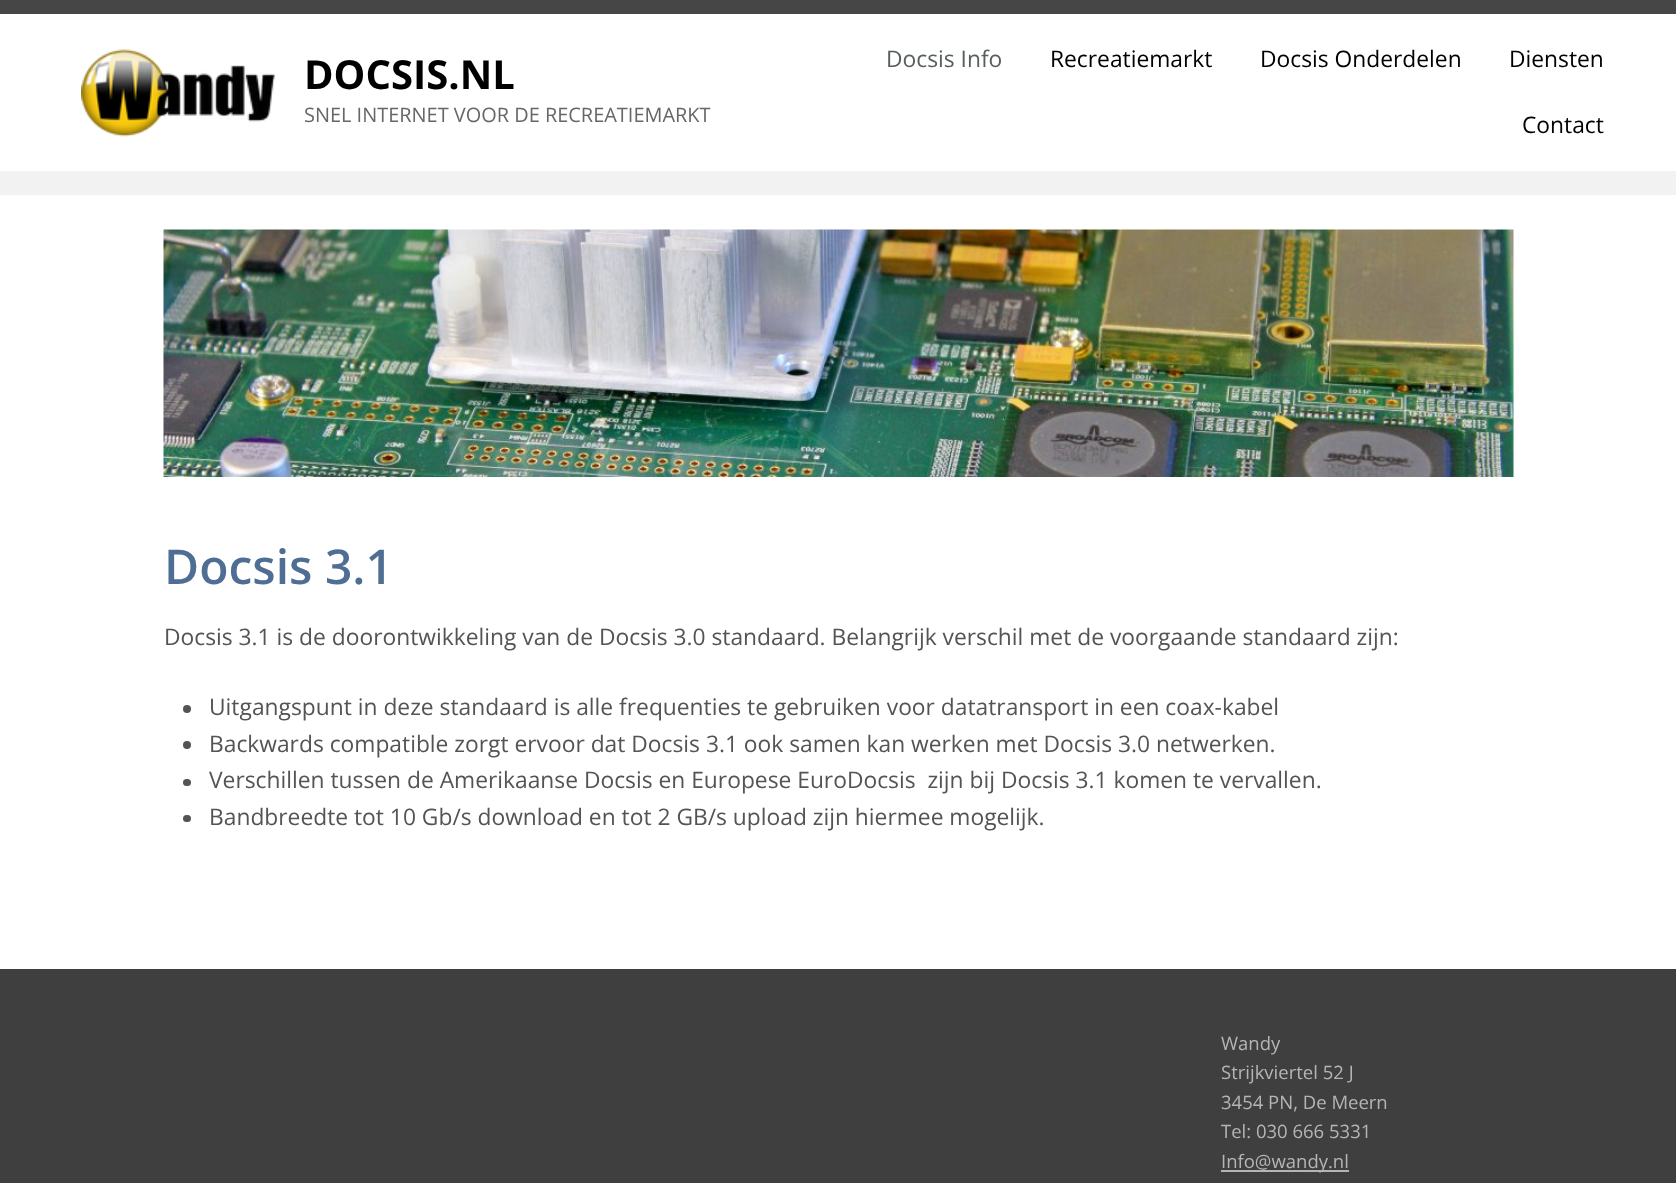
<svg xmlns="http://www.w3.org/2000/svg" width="1676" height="1183">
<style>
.a{font:bold 40px Open Sans;fill:#000}
.b{font:19.95px Open Sans;fill:#676767}
.c{font:22.8px Open Sans;fill:#575e5e}
.d{font:22.8px Open Sans;fill:#000}
.e{font:600 48px Open Sans;fill:#4f6e94}
.f{font:22.8px Open Sans;fill:#535455}
.g{font:18.5px Open Sans;fill:#b5b5b5}
</style>
<rect width="100%" height="100%" fill="#464646"/>
<path fill="#fff" d="M0 14h1676v157H0z"/>
<image href="1.png" x="81" y="49" width="194" height="88"/>
<path fill="#f2f2f2" d="M0 171h1676v24H0z"/>
<path fill="#fff" d="M0 195h1676v774H0z"/>
<image href="2.png" x="163" y="229" width="1351" height="248"/>
<circle fill="#535455" cx="187" cy="709" r="4"/>
<circle fill="#535455" cx="187" cy="745" r="4"/>
<rect fill="#535455" x="183" y="779" width="8" height="7" rx="3.5"/>
<rect fill="#535455" x="183" y="815" width="8" height="7" rx="3.5"/>
<path fill="#403f3f" d="M0 969h1676v214H0z"/>
<path fill="#b5b5b5" d="M1221 1170h128v2H1221z"/>
<text class="a" x="304" y="89">DOCSIS.NL</text>
<text class="b" x="304" y="122">SNEL INTERNET VOOR DE RECREATIEMARKT</text>
<text class="c" x="886" y="67">Docsis Info</text>
<text class="d" x="1050" y="67">Recreatiemarkt</text>
<text class="d" x="1260" y="67">Docsis Onderdelen</text>
<text class="d" x="1509" y="67">Diensten</text>
<text class="d" x="1522" y="133">Contact</text>
<text class="e" x="164" y="584">Docsis 3.1</text>
<text class="f" x="164" y="645">Docsis 3.1 is de doorontwikkeling van de Docsis 3.0 standaard. Belangrijk verschil met de voorgaande standaard zijn:</text>
<text class="f" x="209" y="715">Uitgangspunt in deze standaard is alle frequenties te gebruiken voor datatransport in een coax-kabel</text>
<text class="f" x="209" y="752">Backwards compatible zorgt ervoor dat Docsis 3.1 ook samen kan werken met Docsis 3.0 netwerken.</text>
<text class="f" xml:space="preserve" x="209" y="788">Verschillen tussen de Amerikaanse Docsis en Europese EuroDocsis  zijn bij Docsis 3.1 komen te vervallen.</text>
<text class="f" x="209" y="825">Bandbreedte tot 10 Gb/s download en tot 2 GB/s upload zijn hiermee mogelijk.</text>
<text class="g" x="1221" y="1050">Wandy</text>
<text class="g" x="1221" y="1079">Strijkviertel 52 J</text>
<text class="g" x="1221" y="1109">3454 PN, De Meern</text>
<text class="g" x="1221" y="1138">Tel: 030 666 5331</text>
<text class="g" x="1221" y="1168">Info@wandy.nl</text>
</svg>
